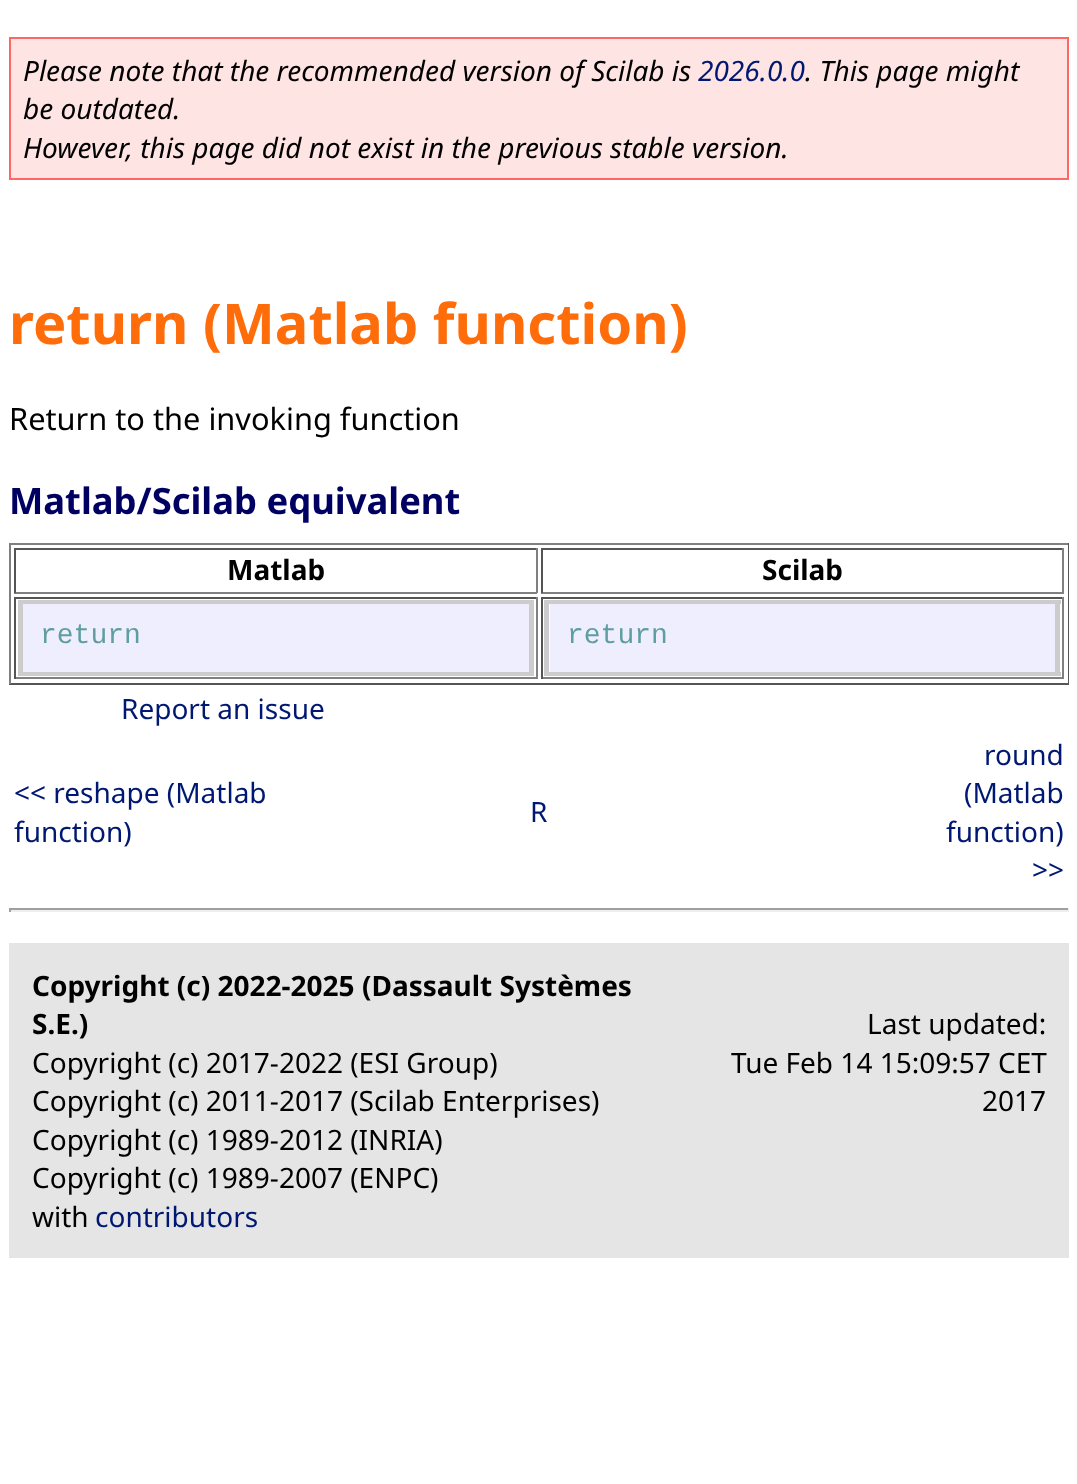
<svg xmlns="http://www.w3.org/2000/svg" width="1077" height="1484">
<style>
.a{font:italic 28px Noto Sans;fill:#000}
.b{font:italic 28px Noto Sans;fill:#001871}
.c{font:bold 56px Noto Sans;fill:#ff6c0a}
.d{font:30.75px Noto Sans;fill:#000}
.e{font:bold 36.4px Noto Sans;fill:#000063}
.f{font:bold 28px Noto Sans;fill:#000}
.g{font:28px Liberation Mono;fill:#5f9ea0}
.h{font:28px Noto Sans;fill:#001871}
.i{font:28px Noto Sans;fill:#000}
</style>
<rect width="100%" height="100%" fill="#fff"/>
<path fill="#ffe4e4" stroke="#f66" stroke-width="2" d="M10 38h1058v141H10z"/>
<path fill="#808080" d="M9 543h1060v2H9z"/>
<path fill="#555" d="M1068 543h1v141H1068z"/>
<path fill="#555" d="M9 683h1060v2H9z"/>
<path fill="#808080" d="M9 543h2v141H9z"/>
<path fill="#555" d="M14 548h523v2H14z"/>
<path fill="#808080" d="M536 548h2v45H536z"/>
<path fill="#808080" d="M14 592h523v2H14z"/>
<path fill="#555" d="M14 548h2v45H14z"/>
<path fill="#555" d="M541 548h523v2H541z"/>
<path fill="#808080" d="M1062 548h2v45H1062z"/>
<path fill="#808080" d="M541 592h523v2H541z"/>
<path fill="#555" d="M541 548h2v45H541z"/>
<path fill="#555" d="M14 597h523v2H14z"/>
<path fill="#808080" d="M536 597h2v82H536z"/>
<path fill="#808080" d="M14 677h523v2H14z"/>
<path fill="#555" d="M14 597h2v82H14z"/>
<path fill="#eef" d="M23 604h506v68H23z"/>
<path fill="#ccc" d="M18 600h516v4H18z"/>
<path fill="#ccc" d="M529 600h5v76H529z"/>
<path fill="#ccc" d="M18 672h516v4H18z"/>
<path fill="#ccc" d="M18 600h5v76H18z"/>
<path fill="#555" d="M541 597h523v2H541z"/>
<path fill="#808080" d="M1062 597h2v82H1062z"/>
<path fill="#808080" d="M541 677h523v2H541z"/>
<path fill="#555" d="M541 597h2v82H541z"/>
<path fill="#eef" d="M550 604h505v68H550z"/>
<path fill="#ccc" d="M544 600h517v4H544z"/>
<path fill="#ccc" d="M1055 600h5v76H1055z"/>
<path fill="#ccc" d="M544 672h517v4H544z"/>
<path fill="#ccc" d="M544 600h5v76H544z"/>
<path fill="#9f9f9f" d="M9 908h1060v2H9z"/>
<path fill="#eee" d="M1068 908h1v4H1068z"/>
<path fill="#eee" d="M9 910h1060v2H9z"/>
<path fill="#9f9f9f" d="M9 908h2v4H9z"/>
<path fill="#e5e5e5" d="M9 943h1060v315H9z"/>
<text class="a" x="23" y="81">Please note that the recommended version of Scilab is</text>
<text class="b" x="698" y="81">2026.0.0</text>
<text class="a" x="805" y="81">. This page might</text>
<text class="a" x="23" y="119">be outdated.</text>
<text class="a" x="23" y="158">However, this page did not exist in the previous stable version.</text>
<text class="c" x="9" y="344">return (Matlab function)</text>
<text class="d" x="9" y="430">Return to the invoking function</text>
<text class="e" x="9" y="514">Matlab/Scilab equivalent</text>
<text class="f" x="227" y="580">Matlab</text>
<text class="f" x="762" y="580">Scilab</text>
<text class="g" x="40" y="643">return</text>
<text class="g" x="567" y="643">return</text>
<text class="h" x="121" y="719">Report an issue</text>
<text class="h" x="14" y="803">&lt;&lt; reshape (Matlab</text>
<text class="h" x="14" y="842">function)</text>
<text class="h" x="530" y="822">R</text>
<text class="h" x="984" y="765">round</text>
<text class="h" x="964" y="803">(Matlab</text>
<text class="h" x="946" y="842">function)</text>
<text class="h" x="1032" y="880">&gt;&gt;</text>
<text class="f" x="32" y="996">Copyright (c) 2022-2025 (Dassault Systèmes</text>
<text class="f" x="32" y="1034">S.E.)</text>
<text class="i" x="32" y="1073">Copyright (c) 2017-2022 (ESI Group)</text>
<text class="i" x="32" y="1111">Copyright (c) 2011-2017 (Scilab Enterprises)</text>
<text class="i" x="32" y="1150">Copyright (c) 1989-2012 (INRIA)</text>
<text class="i" x="32" y="1188">Copyright (c) 1989-2007 (ENPC)</text>
<text class="i" x="32" y="1227">with</text>
<text class="h" x="95" y="1227">contributors</text>
<text class="i" x="867" y="1034">Last updated:</text>
<text class="i" x="731" y="1073">Tue Feb 14 15:09:57 CET</text>
<text class="i" x="982" y="1111">2017</text>
</svg>
